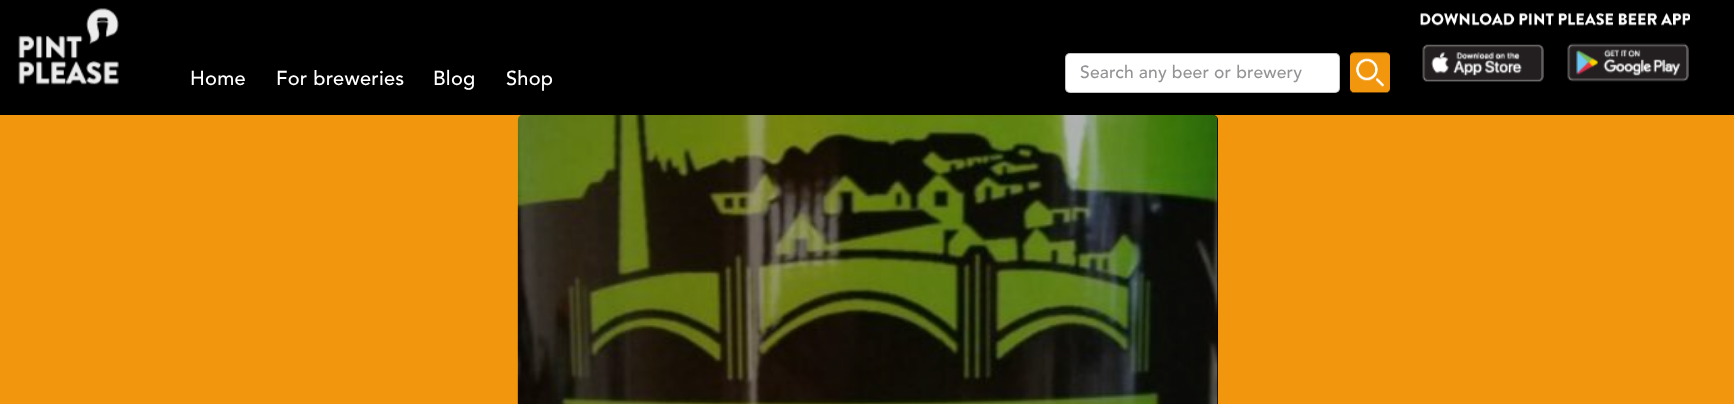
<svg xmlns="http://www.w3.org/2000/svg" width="1734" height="404">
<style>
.a{font:500 20px Avenir;letter-spacing:0.25px;fill:#fff}
.b{font:500 17.5px Avenir;letter-spacing:0.15px;fill:#949497}
</style>
<defs>
<linearGradient id="g1" gradientUnits="userSpaceOnUse" x1="868" y1="115" x2="868" y2="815"><stop offset="0" stop-color="#000" stop-opacity="0"/><stop offset="1" stop-color="#000" stop-opacity="0.2"/></linearGradient>
</defs>
<rect width="100%" height="100%" fill="#f2970d"/>
<path fill="#000" d="M0 0h1734v115H0z"/>
<image href="1.png" x="18" y="8" width="101" height="77"/>
<rect fill="#fff" x="1065" y="53" width="275" height="40" rx="5"/>
<rect fill="none" stroke="#0000003d" x="1065.5" y="53.5" width="274" height="39" rx="4.5"/>
<image href="2.png" x="1350" y="52" width="40" height="41"/>
<image href="3.png" x="1420" y="12" width="270" height="14"/>
<image href="4.png" x="1422" y="44" width="122" height="38"/>
<image href="5.png" x="1567" y="43" width="122" height="39"/>
<rect fill="#000" x="518" y="115" width="700" height="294" rx="5"/>
<image href="6.png" x="517" y="115" width="701" height="289"/>
<path fill="url(#g1)" d="M518 190h699v214H518z"/>
<text class="a" x="190" y="85">Home</text>
<text class="a" x="276" y="85">For breweries</text>
<text class="a" x="433" y="85">Blog</text>
<text class="a" x="506" y="85">Shop</text>
<text class="b" x="1080" y="78">Search any beer or brewery</text>
</svg>
